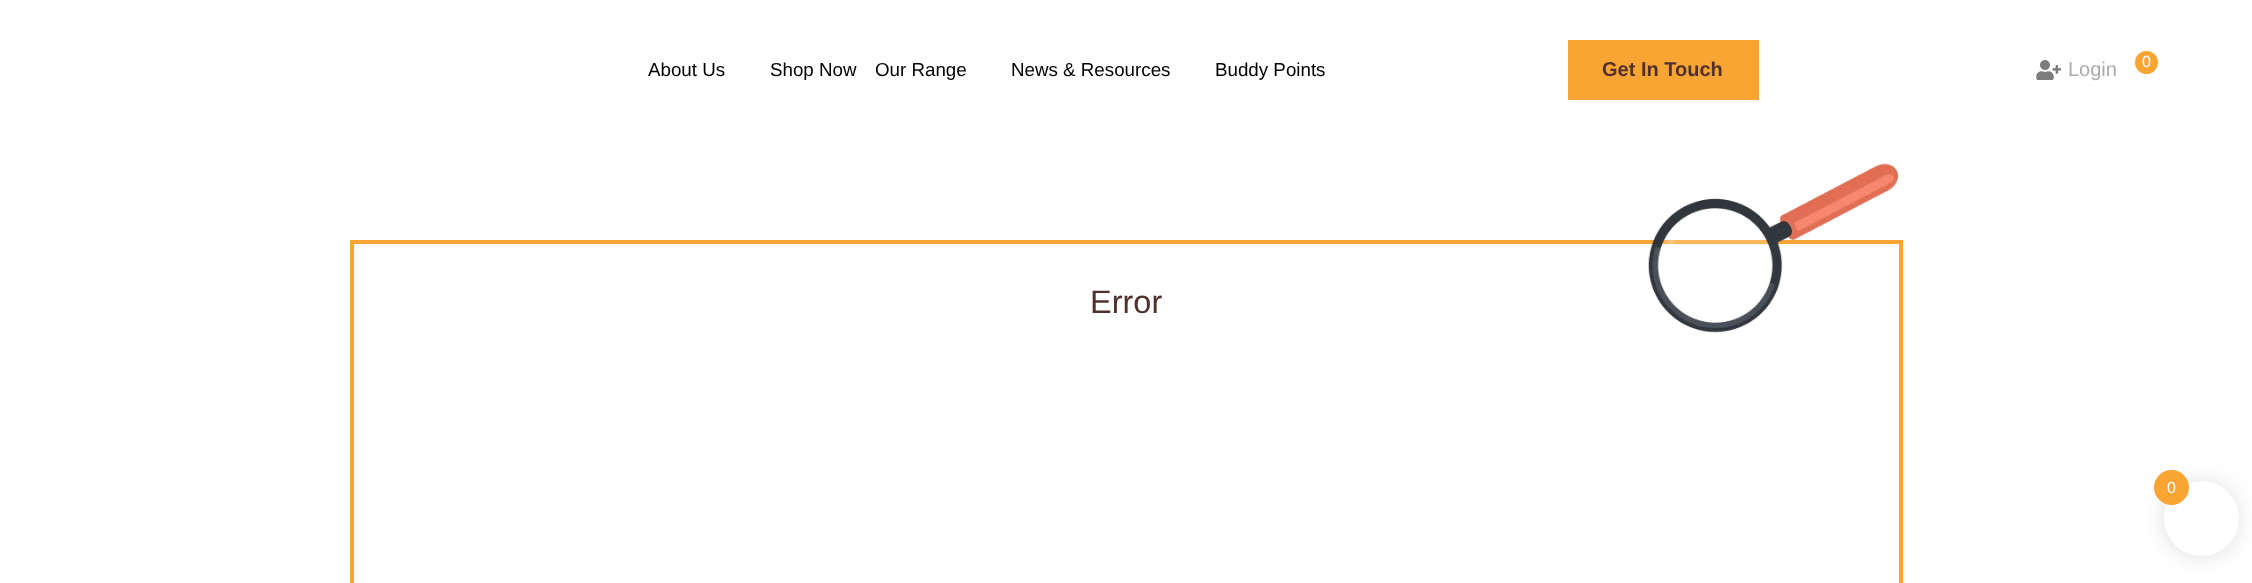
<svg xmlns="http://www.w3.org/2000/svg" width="2252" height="583">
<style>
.a{font:18.75px Liberation Sans;fill:#000}
.b{font:bold 20px Liberation Sans;fill:#51312d}
.c{font:20px Liberation Sans;fill:#ababab}
.d{font:16px Liberation Sans;fill:#fff}
.e{font:32.5px Liberation Sans;fill:#51312d}
</style>
<rect width="100%" height="100%" fill="#fff"/>
<path fill="#f9a534" d="M1568 40h191v60H1568z"/>
<image href="1.png" x="2036" y="60" width="25" height="20"/>
<circle fill="#f9a534" cx="2146.5" cy="62.5" r="11.5"/>
<path fill="none" stroke="#f9a534" stroke-width="4" d="M352 242h1549v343H352z"/>
<image href="2.png" x="1648" y="163" width="251" height="170"/>
<rect fill="#0000001a" filter="blur(9.5px)" x="2161" y="479" width="80" height="80" rx="40"/>
<circle fill="#fff" cx="2201.5" cy="518.5" r="37.5"/>
<circle fill="#f9a534" cx="2171.5" cy="487.5" r="17.5"/>
<text class="a" x="648" y="76">About Us</text>
<text class="a" x="770" y="76">Shop Now</text>
<text class="a" x="875" y="76">Our Range</text>
<text class="a" x="1011" y="76">News &amp; Resources</text>
<text class="a" x="1215" y="76">Buddy Points</text>
<text class="b" x="1602" y="76">Get In Touch</text>
<text class="c" x="2068" y="76">Login</text>
<text class="d" x="2142" y="67">0</text>
<text class="e" x="1090" y="313">Error</text>
<text class="d" x="2167" y="493">0</text>
</svg>
